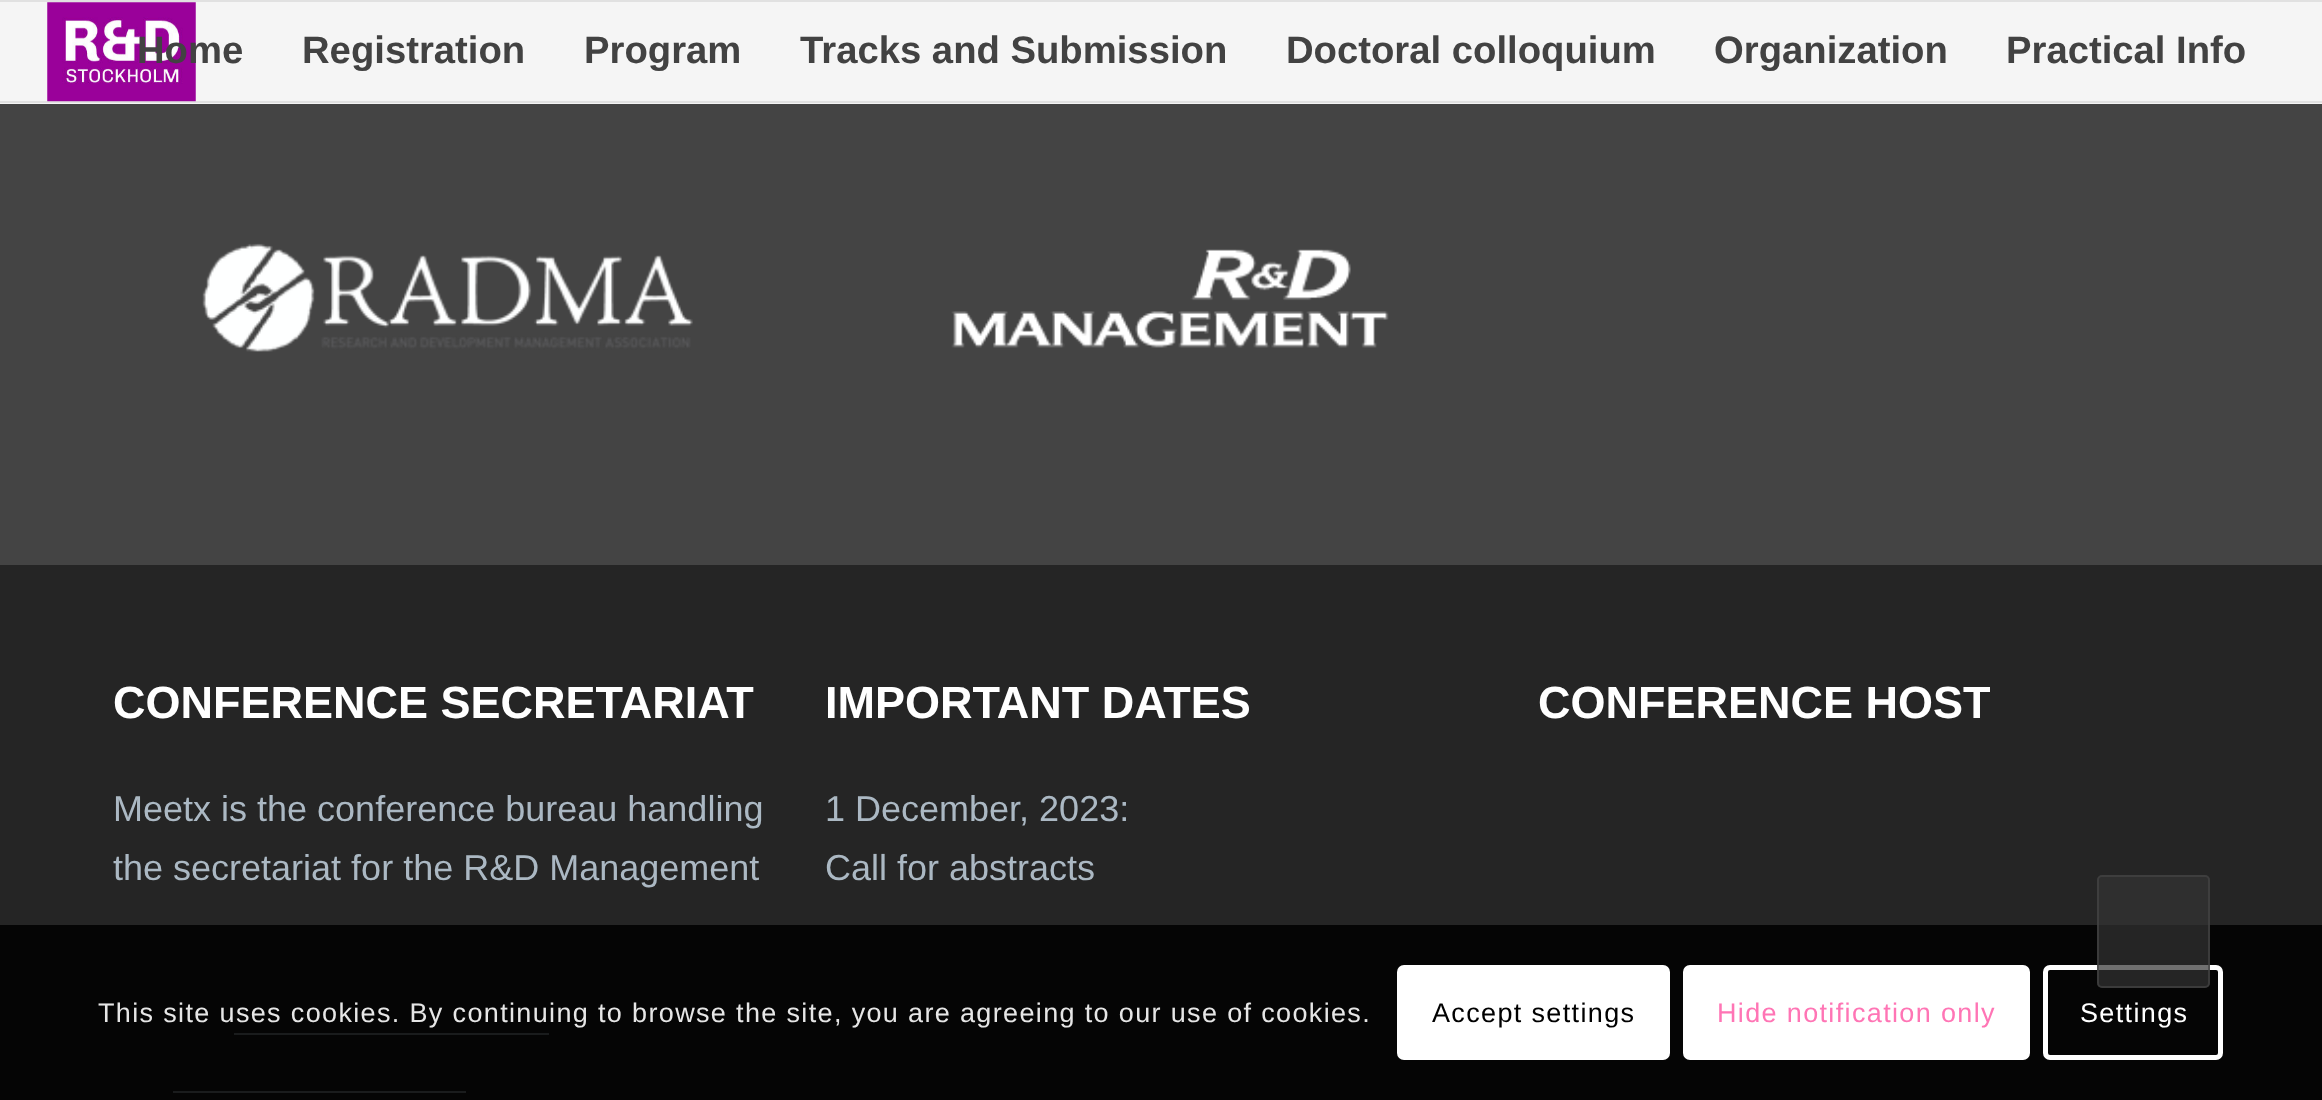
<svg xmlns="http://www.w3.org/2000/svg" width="2322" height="1100">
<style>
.a{font:bold 38.25px Liberation Sans;fill:#424242}
.b{font:bold 45px Liberation Sans;fill:#fff}
.c{font:36px Liberation Sans;fill:#abb8c3}
.d{font:27px Liberation Sans;letter-spacing:1.35px;fill:#e6e6e6}
.e{font:27px Liberation Sans;letter-spacing:1.35px;fill:#000}
.f{font:27px Liberation Sans;letter-spacing:1.35px;fill:#ff75b5}
.g{font:27px Liberation Sans;letter-spacing:1.35px;fill:#fff}
</style>
<rect width="100%" height="100%" fill="#444"/>
<path fill="#fffffff2" d="M0 2h2322v102H0z"/>
<path fill="#e1e1e1" d="M0 0h2322v2H0z"/>
<path fill="#e1e1e1" d="M0 101h2322v2H0z"/>
<image href="1.png" x="47" y="2" width="149" height="100"/>
<image href="2.png" x="202" y="243" width="491" height="109"/>
<image href="3.png" x="951" y="249" width="438" height="99"/>
<path fill="#252525" d="M0 565h2322v535H0z"/>
<path fill="#abb8c3" d="M234 1033h315v2H234z"/>
<path fill="#abb8c3" d="M173 1091h293v2H173z"/>
<path fill="#000000d9" d="M0 925h2322v175H0z"/>
<rect fill="none" stroke="#fff" stroke-width="5" x="2045.5" y="967.5" width="175" height="90" rx="4.5"/>
<rect fill="#333333b3" x="2097" y="875" width="113" height="113" rx="5"/>
<rect fill="none" stroke="#444444b3" stroke-width="2" x="2098" y="876" width="111" height="111" rx="4"/>
<rect fill="#fff" x="1397" y="965" width="273" height="95" rx="7"/>
<rect fill="#fff" stroke="#fff" stroke-width="5" x="1685.5" y="967.5" width="342" height="90" rx="4.5"/>
<text class="a" x="137" y="63">Home</text>
<text class="a" x="302" y="63">Registration</text>
<text class="a" x="584" y="63">Program</text>
<text class="a" x="800" y="63">Tracks and Submission</text>
<text class="a" x="1286" y="63">Doctoral colloquium</text>
<text class="a" x="1714" y="63">Organization</text>
<text class="a" x="2006" y="63">Practical Info</text>
<text class="b" x="113" y="718">CONFERENCE SECRETARIAT</text>
<text class="c" x="113" y="821">Meetx is the conference bureau handling</text>
<text class="c" x="113" y="880">the secretariat for the R&amp;D Management</text>
<text class="b" x="825" y="718">IMPORTANT DATES</text>
<text class="c" x="825" y="821">1 December, 2023:</text>
<text class="c" x="825" y="880">Call for abstracts</text>
<text class="b" x="1538" y="718">CONFERENCE HOST</text>
<text class="d" x="98" y="1022">This site uses cookies. By continuing to browse the site, you are agreeing to our use of cookies.</text>
<text class="e" x="1432" y="1022">Accept settings</text>
<text class="f" x="1717" y="1022">Hide notification only</text>
<text class="g" x="2080" y="1022">Settings</text>
</svg>
